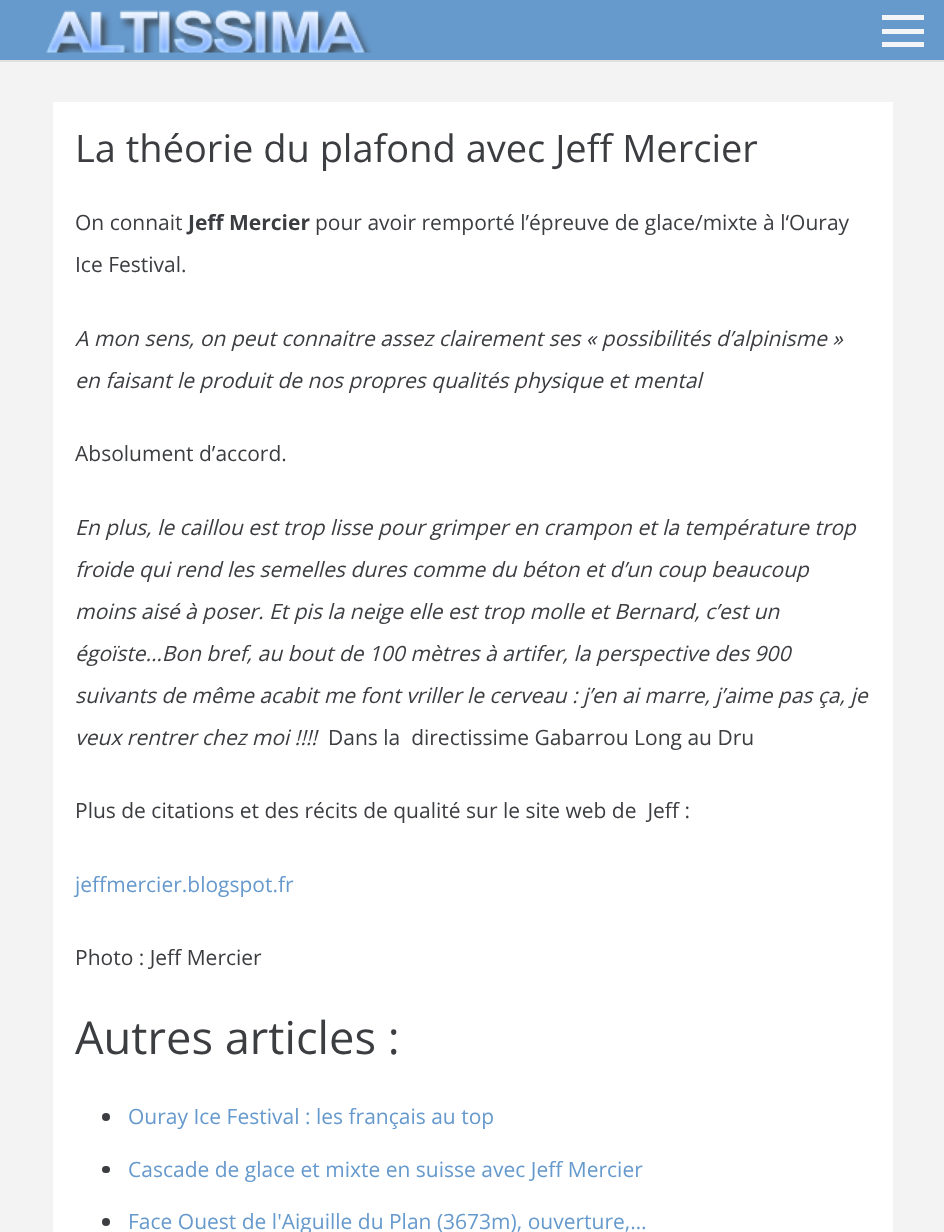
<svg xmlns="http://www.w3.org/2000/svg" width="944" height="1232">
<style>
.a{font:38px Open Sans;fill:#3b3d40}
.b{font:21px Open Sans;fill:#3b3d40}
.c{font:bold 21px Open Sans;fill:#3b3d40}
.d{font:italic 21px Open Sans;fill:#3b3d40}
.e{font:21px Open Sans;fill:#69c}
.f{font:45.25px Open Sans;fill:#3b3d40}
</style>
<rect width="100%" height="100%" fill="#f3f3f3"/>
<path fill="#e0e0e0" d="M0 60h944v2H0z"/>
<path fill="#69c" d="M0 0h944v60H0z"/>
<image href="1.png" x="46" y="10" width="326" height="43"/>
<path fill="#f2f4f7" d="M882 29h42v5H882z"/>
<path fill="#f2f4f7" d="M882 15h42v5H882z"/>
<path fill="#f2f4f7" d="M882 42h42v5H882z"/>
<path fill="#fff" d="M53 102h840v1130H53z"/>
<circle fill="#3b3d40" cx="106" cy="1117" r="4"/>
<rect fill="#3b3d40" x="102" y="1166" width="8" height="7" rx="3.5"/>
<circle fill="#3b3d40" cx="106" cy="1222" r="4"/>
<text class="a" x="75" y="162">La théorie du plafond avec Jeff Mercier</text>
<text class="b" x="75" y="230">On connait</text>
<text class="c" x="188" y="230">Jeff Mercier</text>
<text class="b" x="315" y="230">pour avoir remporté l’épreuve de glace/mixte à l‘Ouray</text>
<text class="b" x="75" y="272">Ice Festival.</text>
<text class="d" x="75" y="346">A mon sens, on peut connaitre assez clairement ses « possibilités d’alpinisme »</text>
<text class="d" x="75" y="388">en faisant le produit de nos propres qualités physique et mental</text>
<text class="b" x="75" y="461">Absolument d’accord.</text>
<text class="d" x="75" y="535">En plus, le caillou est trop lisse pour grimper en crampon et la température trop</text>
<text class="d" x="75" y="577">froide qui rend les semelles dures comme du béton et d’un coup beaucoup</text>
<text class="d" x="75" y="619">moins aisé à poser. Et pis la neige elle est trop molle et Bernard, c’est un</text>
<text class="d" x="75" y="661">égoïste…Bon bref, au bout de 100 mètres à artifer, la perspective des 900</text>
<text class="d" x="75" y="703">suivants de même acabit me font vriller le cerveau : j’en ai marre, j’aime pas ça, je</text>
<text class="d" x="75" y="745">veux rentrer chez moi !!!!</text>
<text class="b" xml:space="preserve" x="328" y="745">Dans la  directissime Gabarrou Long au Dru</text>
<text class="b" xml:space="preserve" x="75" y="818">Plus de citations et des récits de qualité sur le site web de  Jeff :</text>
<text class="e" x="75" y="892">jeffmercier.blogspot.fr</text>
<text class="b" x="75" y="965">Photo : Jeff Mercier</text>
<text class="f" x="75" y="1054">Autres articles :</text>
<text class="e" x="128" y="1124">Ouray Ice Festival : les français au top</text>
<text class="e" x="128" y="1177">Cascade de glace et mixte en suisse avec Jeff Mercier</text>
<text class="e" x="128" y="1229">Face Ouest de l'Aiguille du Plan (3673m), ouverture,…</text>
</svg>
